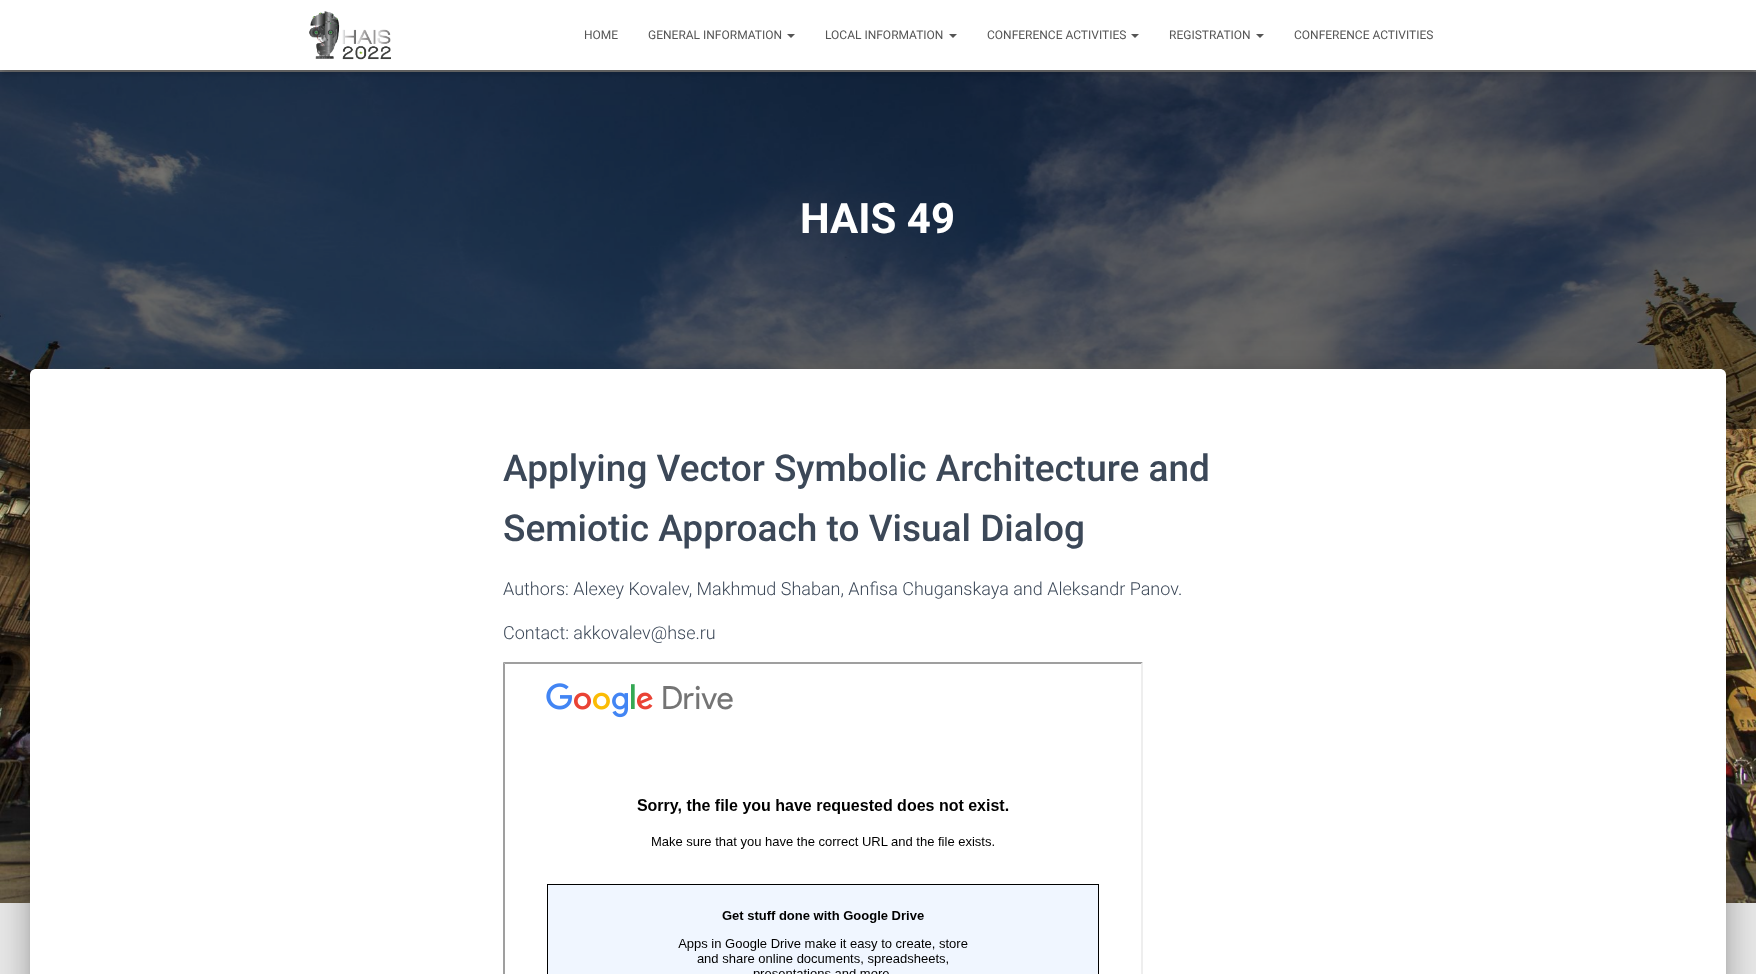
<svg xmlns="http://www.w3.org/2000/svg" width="1756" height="974">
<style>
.a{font:12px Roboto;fill:#555}
.b{font:bold 42px Roboto;fill:#fff}
.c{font:500 37px Roboto;fill:#3c4858}
.d{font:300 18px Roboto;fill:#3c4858}
</style>
<rect width="100%" height="100%" fill="#e5e5e5"/>
<image href="1.png" x="0" y="72" width="1756" height="831"/>
<path fill="#00000080" d="M0 70h1756v359H0z"/>
<path fill="#0000001a" filter="blur(2.5px)" d="M2 6h1752v66H2z"/>
<path fill="#0000001f" filter="blur(5px)" d="M0 1h1756v70H0z"/>
<path fill="#0000006b" filter="blur(5px)" d="M6 7h1744v58H6z"/>
<path fill="#fff" d="M0 0h1756v70H0z"/>
<image href="2.png" x="309" y="11" width="82" height="49"/>
<path fill="#555" d="M787 34h8l-4 4z"/>
<path fill="#555" d="M949 34h8l-4 4z"/>
<path fill="#555" d="M1131 34h8l-4 4z"/>
<path fill="#555" d="M1256 34h8l-4 4z"/>
<rect fill="#00000033" filter="blur(5px)" x="35" y="382" width="1686" height="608" rx="1"/>
<rect fill="#0000001f" filter="blur(15px)" x="25" y="370" width="1706" height="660" rx="11"/>
<rect fill="#00000024" filter="blur(12px)" x="28" y="383" width="1700" height="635" rx="8"/>
<path fill="#fff" d="M36 369h1684c3.5 0 6 2.5 6 6v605h-1696v-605c0-3.5 2.5-6 6-6z"/>
<path fill="#9f9f9f" d="M503 662h640l-2 2h-636z"/>
<path fill="#9f9f9f" d="M503 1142v-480l2 2v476z"/>
<image href="3.png" x="546" y="683" width="553" height="291"/>
<path fill="#eee" d="M1143 662v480l-2-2v-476z"/>
<text class="a" x="584" y="39">HOME</text>
<text class="a" x="648" y="39">GENERAL INFORMATION</text>
<text class="a" x="825" y="39">LOCAL INFORMATION</text>
<text class="a" x="987" y="39">CONFERENCE ACTIVITIES</text>
<text class="a" x="1169" y="39">REGISTRATION</text>
<text class="a" x="1294" y="39">CONFERENCE ACTIVITIES</text>
<text class="b" x="800" y="233">HAIS 49</text>
<text class="c" x="503" y="481">Applying Vector Symbolic Architecture and</text>
<text class="c" x="503" y="541">Semiotic Approach to Visual Dialog</text>
<text class="d" x="503" y="595">Authors: Alexey Kovalev, Makhmud Shaban, Anfisa Chuganskaya and Aleksandr Panov.</text>
<text class="d" x="503" y="639">Contact: akkovalev@hse.ru</text>
</svg>
